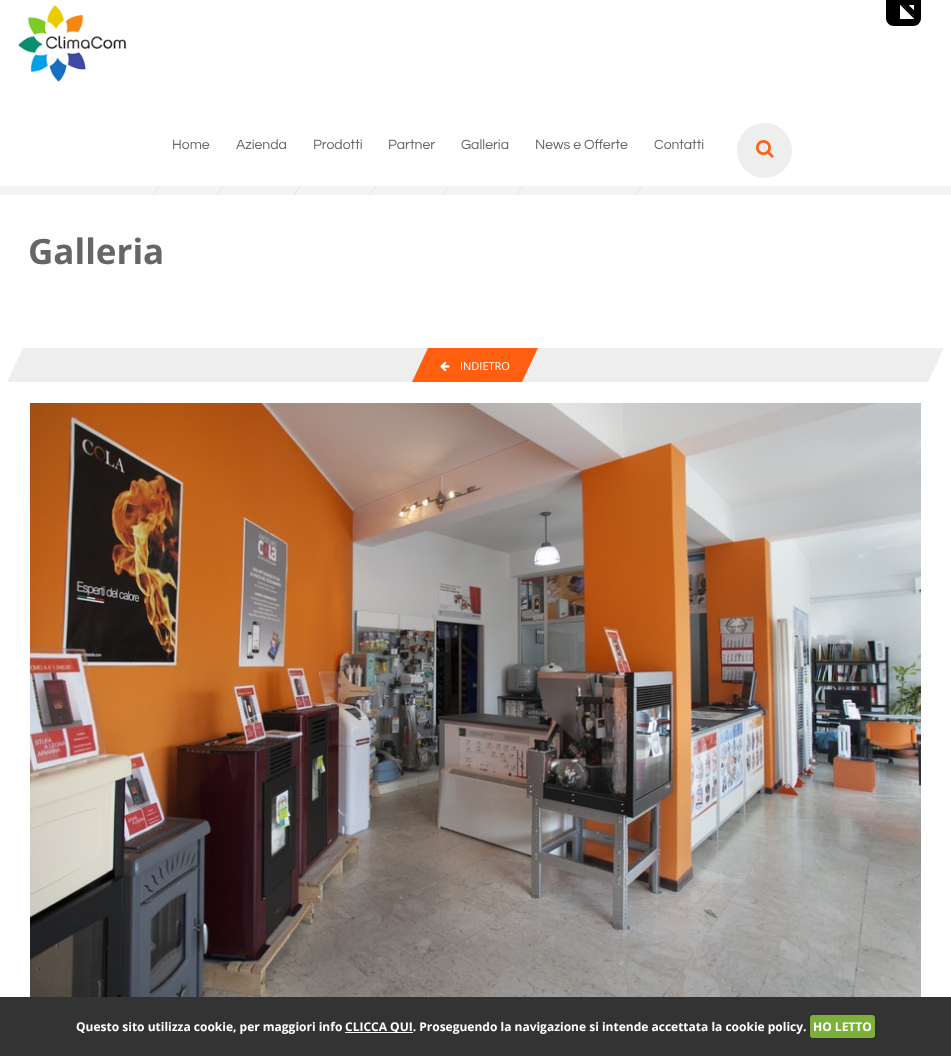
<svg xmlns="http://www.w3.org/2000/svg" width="951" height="1056">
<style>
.a{font:14px Questrial;fill:#666}
.b{font:bold 35px Open Sans;fill:#666}
.c{font:11px Open Sans;fill:#fff}
.d{font:bold 12px Open Sans;fill:#fff}
</style>
<rect width="100%" height="100%" fill="#fff"/>
<path fill="#000" d="M886 0h35v18c0 4.5-3.5 8-8 8h-19c-4.5 0-8-3.5-8-8z"/>
<image href="1.png" x="900" y="5" width="14" height="14"/>
<path fill="#f4f4f4" d="M0 186h951v9H0z"/>
<image href="2.png" x="18" y="5" width="108" height="77"/>
<path fill="#e4e4e4" d="M159 186h1l-6 9h-1z"/>
<path fill="#e4e4e4" d="M223 186h1l-6.5 9h-1z"/>
<path fill="#e4e4e4" d="M299.5 186h1l-6 9h-1z"/>
<path fill="#e4e4e4" d="M375.5 186h1l-6.5 9h-1z"/>
<path fill="#e4e4e4" d="M448.5 186h1l-6.5 9h-1z"/>
<path fill="#e4e4e4" d="M522.5 186h1l-6.5 9h-1z"/>
<path fill="#e4e4e4" d="M641 186h1l-6 9h-1z"/>
<circle fill="#eee" cx="764.5" cy="150.5" r="27.5"/>
<image href="3.png" x="756" y="140" width="18" height="18"/>
<path fill="#eee" d="M23 348h921l-16 34h-921z"/>
<path fill="#ff5f0f" d="M428 348h110l-16 34h-110z"/>
<image href="4.png" x="440" y="361" width="10" height="11"/>
<image href="5.png" x="30" y="403" width="891" height="594"/>
<path fill="#333" d="M0 997h951v59H0z"/>
<path fill="#fff" d="M345 1032h68v1H345z"/>
<rect fill="#00000040" filter="blur(1px)" x="810" y="1015" width="65" height="23" rx="3"/>
<rect fill="#7daf3b" x="810" y="1015" width="65" height="23" rx="3"/>
<text class="a" x="172" y="149">Home</text>
<text class="a" x="236" y="149">Azienda</text>
<text class="a" x="313" y="149">Prodotti</text>
<text class="a" x="388" y="149">Partner</text>
<text class="a" x="461" y="149">Galleria</text>
<text class="a" x="535" y="149">News e Offerte</text>
<text class="a" x="654" y="149">Contatti</text>
<text class="b" x="28" y="264">Galleria</text>
<text class="c" x="460" y="370">INDIETRO</text>
<text class="d" x="76" y="1031">Questo sito utilizza cookie, per maggiori info</text>
<text class="d" x="345" y="1031">CLICCA QUI. Proseguendo la navigazione si intende accettata la cookie policy.</text>
<text class="d" x="813" y="1031">HO LETTO</text>
</svg>
